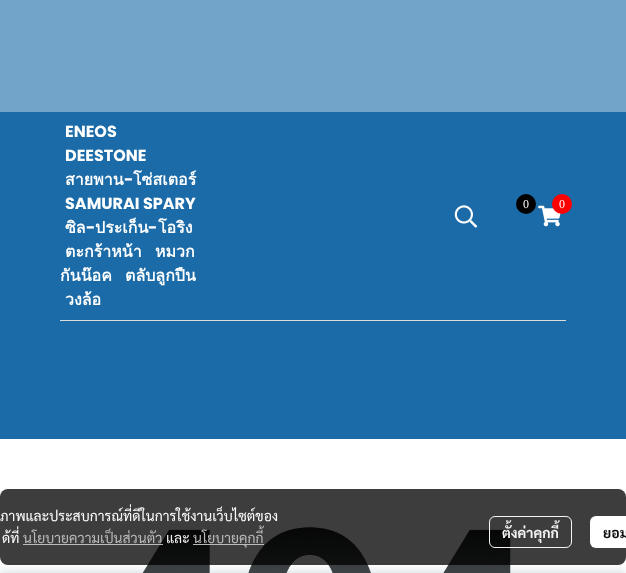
<svg xmlns="http://www.w3.org/2000/svg" width="626" height="573">
<style>
.a{font:bold 16px Poppins;fill:#fff}
.b{font:bold 16px Loma;fill:#fff}
.c{font:12px Liberation Serif;fill:#fff}
.d{font:14px Sarabun;fill:#fff}
.e{font:14px Sarabun;fill:#bbb}
.f{font:14px Sarabun;fill:#f3f3f3}
.g{font:bold 14px Sarabun;fill:#f3f3f3}
.h{font:bold 14px Sarabun;fill:#0d0d0d}
</style>
<rect width="100%" height="100%" fill="#fff"/>
<path fill="#72a3c9" d="M0 0h626v112H0z"/>
<path fill="#1b6ba8" d="M0 112h626v327H0z"/>
<image href="1.png" x="454" y="205" width="24" height="23"/>
<circle fill="#000" cx="526" cy="204" r="10"/>
<image href="2.png" x="538" y="205" width="23" height="22"/>
<circle fill="#f00" cx="562" cy="204" r="10"/>
<path fill="#ddd" d="M60 320h506v1H60z"/>
<image href="3.png" x="143" y="527" width="368" height="46"/>
<path fill="#00354a26" filter="blur(5px)" d="M0 571h626v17H0z"/>
<rect fill="#000000c2" y="489" width="626" height="76" rx="8"/>
<path fill="#c2c2c2f2" d="M23 544h140v1H23z"/>
<path fill="#c2c2c2f2" d="M193 544h71v1H193z"/>
<rect fill="none" stroke="#fffffff2" x="489.5" y="516.5" width="82" height="31" rx="5.5"/>
<rect fill="#fff" x="590" y="516" width="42" height="32" rx="6"/>
<text class="a" x="65" y="137">ENEOS</text>
<text class="a" x="65" y="161">DEESTONE</text>
<text class="b" x="65" y="185">สายพาน</text>
<text class="a" x="124" y="185">-</text>
<text class="b" x="133" y="185">โซ่สเตอร์</text>
<text class="a" x="65" y="209">SAMURAI SPARY</text>
<text class="b" x="65" y="233">ซิล</text>
<text class="a" x="86" y="233">-</text>
<text class="b" x="95" y="233">ประเก็น</text>
<text class="a" x="148" y="233">-</text>
<text class="b" x="158" y="233">โอริง</text>
<text class="b" x="65" y="257">ตะกร้าหน้า</text>
<text class="b" x="155" y="257">หมวก</text>
<text class="b" x="60" y="281">กันน๊อค</text>
<text class="b" x="125" y="281">ตลับลูกปืน</text>
<text class="b" x="65" y="305">วงล้อ</text>
<text class="c" x="523" y="208">0</text>
<text class="c" x="559" y="208">0</text>
<text class="d" x="0" y="521">ิภาพและประสบการณ์ที่ดีในการใช้งานเว็บไซต์ของ</text>
<text class="d" x="2" y="543">ด้ที่</text>
<text class="e" x="23" y="543">นโยบายความเป็นส่วนตัว</text>
<text class="f" x="166" y="543">และ</text>
<text class="e" x="193" y="543">นโยบายคุกกี้</text>
<text class="g" x="502" y="538">ตั้งค่าคุกกี้</text>
<text class="h" x="603" y="538">ยอม</text>
</svg>
